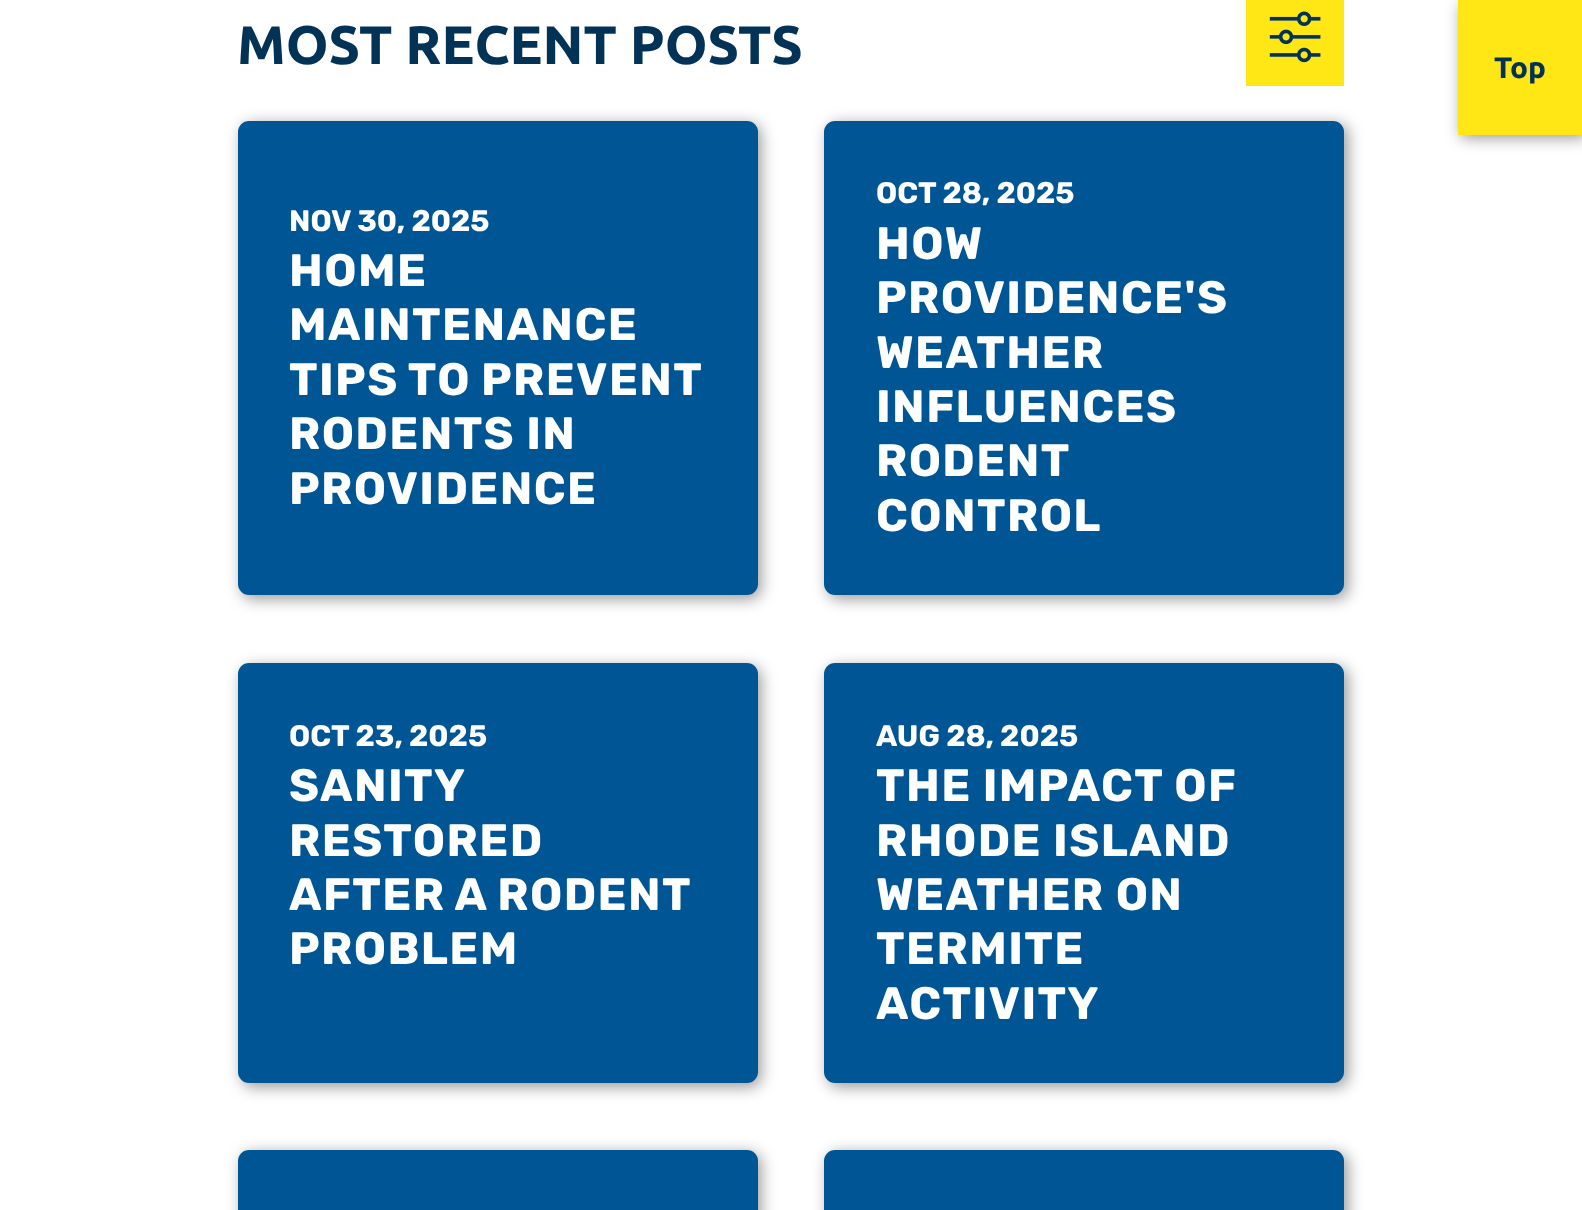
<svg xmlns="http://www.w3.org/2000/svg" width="1582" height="1210">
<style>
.a{font:bold 54.25px Ubuntu;fill:#023256}
.b{font:bold 29.75px Rubik;fill:#fff}
.c{font:bold 45.4px Rubik;letter-spacing:1.4px;fill:#fff}
.d{font:bold 29.75px Ubuntu;fill:#023256}
</style>
<rect width="100%" height="100%" fill="#fff"/>
<path fill="#ffe716" d="M1246 0h98v86H1246z"/>
<image href="1.png" x="1269" y="11" width="52" height="52"/>
<rect fill="#00000066" filter="blur(7.5px)" x="242" y="124" width="519" height="475" rx="11"/>
<rect fill="#005695" x="238" y="121" width="520" height="474" rx="11"/>
<rect fill="#00000066" filter="blur(7.5px)" x="828" y="124" width="520" height="475" rx="11"/>
<rect fill="#005695" x="824" y="121" width="520" height="474" rx="11"/>
<rect fill="#00000066" filter="blur(7.5px)" x="242" y="667" width="519" height="420" rx="11"/>
<rect fill="#005695" x="238" y="663" width="520" height="420" rx="11"/>
<rect fill="#00000066" filter="blur(7.5px)" x="828" y="667" width="520" height="420" rx="11"/>
<rect fill="#005695" x="824" y="663" width="520" height="420" rx="11"/>
<rect fill="#00000066" filter="blur(7.5px)" x="242" y="1153" width="519" height="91" rx="11"/>
<rect fill="#005695" x="238" y="1150" width="520" height="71" rx="11"/>
<rect fill="#00000066" filter="blur(7.5px)" x="828" y="1153" width="520" height="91" rx="11"/>
<rect fill="#005695" x="824" y="1150" width="520" height="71" rx="11"/>
<path fill="#00000066" filter="blur(7.5px)" d="M1461 4h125v134H1461z"/>
<path fill="#ffe716" d="M1458 0h124v135H1458z"/>
<text class="a" x="237" y="64">MOST RECENT POSTS</text>
<text class="b" x="289" y="231">NOV 30, 2025</text>
<text class="c" x="289" y="286">HOME</text>
<text class="c" x="289" y="340">MAINTENANCE</text>
<text class="c" x="289" y="395" word-spacing="-1">TIPS TO PREVENT</text>
<text class="c" x="289" y="449">RODENTS IN</text>
<text class="c" x="289" y="504">PROVIDENCE</text>
<text class="b" x="876" y="203">OCT 28, 2025</text>
<text class="c" x="876" y="259">HOW</text>
<text class="c" x="876" y="313">PROVIDENCE'S</text>
<text class="c" x="876" y="368">WEATHER</text>
<text class="c" x="876" y="422">INFLUENCES</text>
<text class="c" x="876" y="476">RODENT</text>
<text class="c" x="876" y="531">CONTROL</text>
<text class="b" x="289" y="746">OCT 23, 2025</text>
<text class="c" x="289" y="801">SANITY</text>
<text class="c" x="289" y="856">RESTORED</text>
<text class="c" x="289" y="910" word-spacing="-1">AFTER A RODENT</text>
<text class="c" x="289" y="964">PROBLEM</text>
<text class="b" x="876" y="746">AUG 28, 2025</text>
<text class="c" x="876" y="801">THE IMPACT OF</text>
<text class="c" x="876" y="856">RHODE ISLAND</text>
<text class="c" x="876" y="910">WEATHER ON</text>
<text class="c" x="876" y="964">TERMITE</text>
<text class="c" x="876" y="1019">ACTIVITY</text>
<text class="d" x="1494" y="78">Top</text>
</svg>
